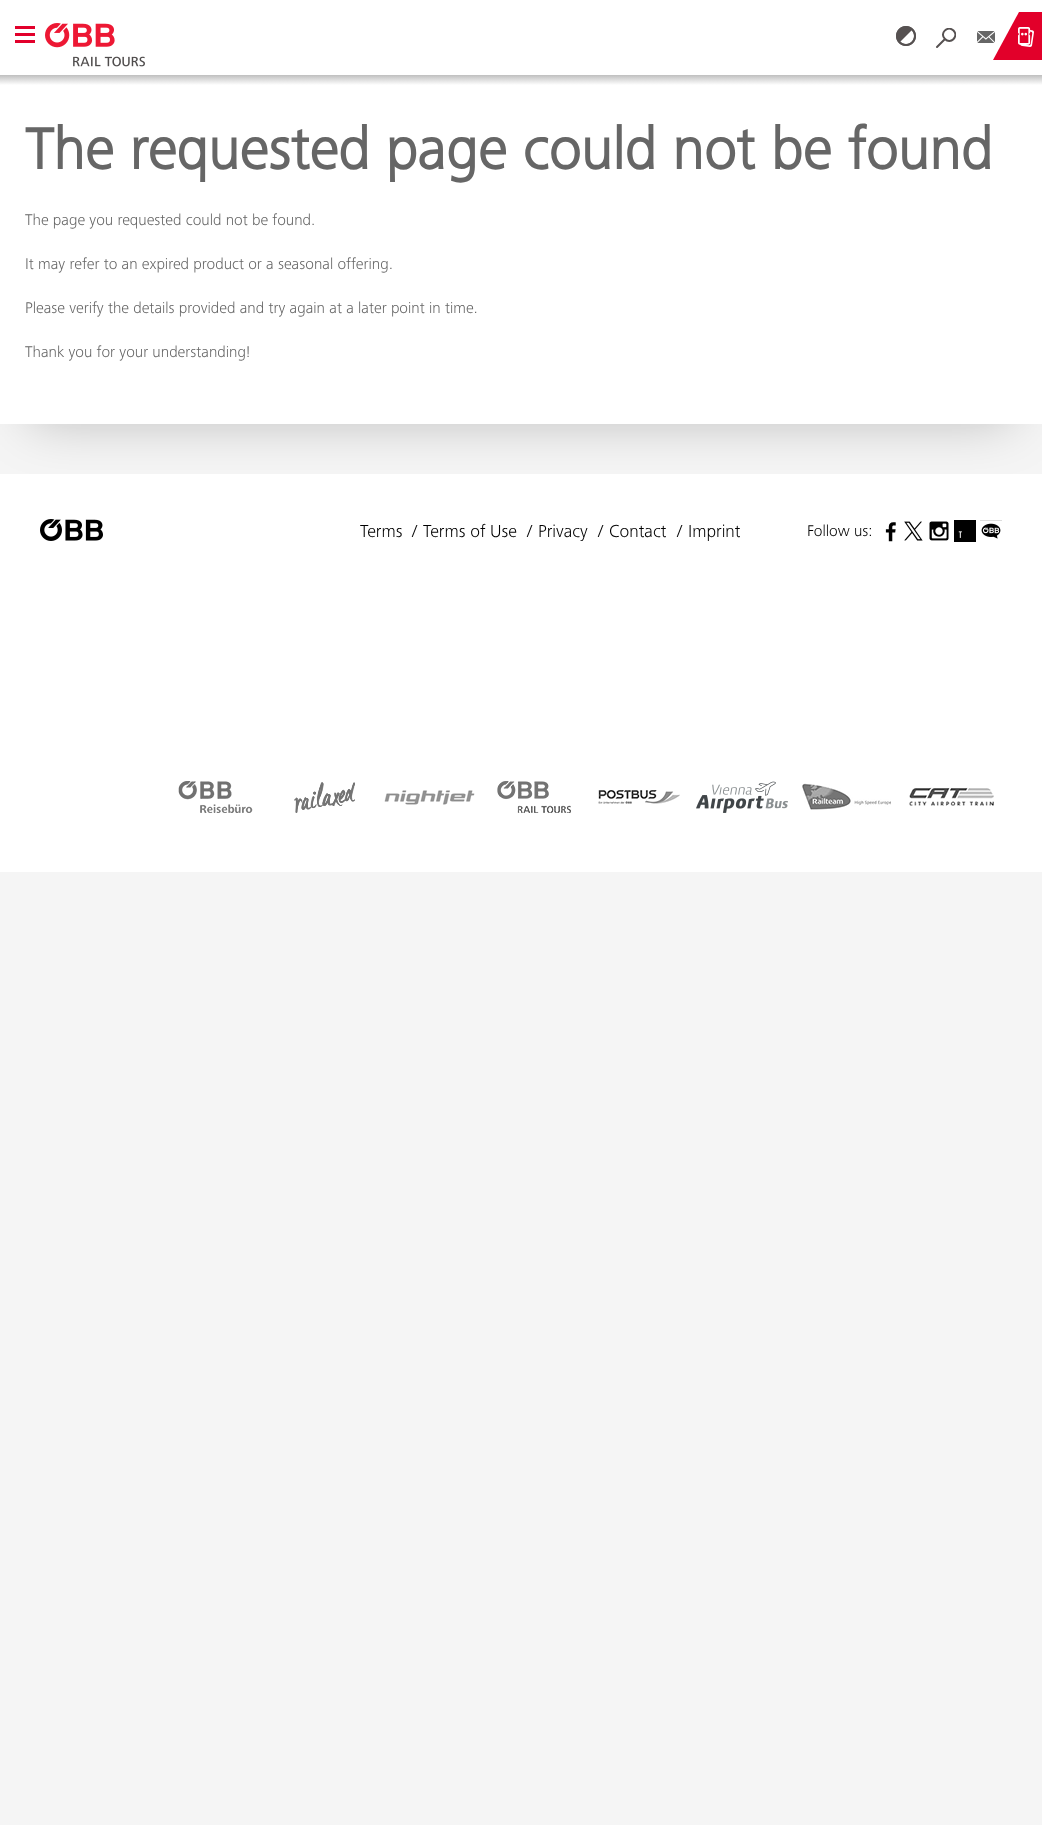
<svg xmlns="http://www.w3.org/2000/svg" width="1042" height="1825">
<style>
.a{font:bold 60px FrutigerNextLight;fill:#666}
.b{font:300 16px FrutigerNextLight;fill:#666}
.c{font:300 18px FrutigerNextLight;fill:#000}
.d{font:300 16px FrutigerNextLight;fill:#000}
</style>
<defs>
<clipPath id="clip1"><path d="M936 28h20v20H936z"/></clipPath>
<linearGradient id="g1" gradientUnits="userSpaceOnUse" x1="521" y1="75" x2="521" y2="85"><stop offset="0" stop-color="#bfbfbf"/><stop offset="1" stop-color="#fff"/></linearGradient>
</defs>
<rect width="100%" height="100%" fill="#f5f5f5"/>
<path fill="#00000040" filter="blur(27.5px)" d="M30 130h982v289H30z"/>
<path fill="#fff" d="M0 0h1042v75H0z"/>
<path fill="#e2002b" d="M15 26h20v3H15z"/>
<path fill="#e2002b" d="M15 33h20v3H15z"/>
<path fill="#e2002b" d="M15 40h20v3H15z"/>
<image href="1.png" x="45" y="23" width="100" height="44"/>
<image href="2.png" x="896" y="26" width="20" height="20"/>
<g clip-path="url(#clip1)">
<path fill="none" stroke="#565151" stroke-width="2" stroke-linecap="round" stroke-linejoin="round" d="M945 39c-6-5.5 2.5-14 8.5-8.5c5.5 6-3 14.5-8.5 8.5z"/>
</g>
<path fill="none" stroke="#565151" stroke-width="2" stroke-linecap="round" stroke-linejoin="round" d="M944.5 39.5l-7.5 7.5"/>
<image href="3.png" x="977" y="31" width="18" height="12"/>
<path fill="#e2002a" d="M1019 12h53l-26 48h-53z"/>
<image href="4.png" x="1018" y="27" width="16" height="20"/>
<path fill="url(#g1)" d="M0 75h1042v10H0z"/>
<path fill="#fff" d="M0 85h1042v339H0z"/>
<path fill="#fff" d="M0 474h1042v398H0z"/>
<image href="5.png" x="40" y="519" width="63" height="22"/>
<path fill="#000" d="M885 522h11v20H885z"/>
<image href="6.png" x="876" y="520" width="22" height="22"/>
<path fill="#000" d="M904 521h19v20H904z"/>
<image href="7.png" x="902" y="520" width="22" height="22"/>
<path fill="#000" d="M929 521h20v20H929z"/>
<image href="8.png" x="928" y="520" width="22" height="22"/>
<path fill="#000" d="M954 520h22v22H954z"/>
<image href="9.png" x="958" y="531" width="4" height="7"/>
<path fill="#000" d="M980 520h22v19H980z"/>
<image href="10.png" x="980" y="520" width="22" height="22"/>
<image href="11.png" x="178" y="781" width="75" height="32"/>
<image href="12.png" x="294" y="782" width="61" height="31"/>
<image href="13.png" x="384" y="790" width="91" height="15"/>
<image href="14.png" x="497" y="781" width="74" height="32"/>
<image href="15.png" x="598" y="790" width="82" height="14"/>
<image href="16.png" x="696" y="781" width="92" height="32"/>
<image href="17.png" x="802" y="783" width="89" height="27"/>
<image href="18.png" x="909" y="787" width="85" height="19"/>
<text class="a" x="25" y="169">The requested page could not be found</text>
<text class="b" x="25" y="225">The page you requested could not be found.</text>
<text class="b" x="25" y="269">It may refer to an expired product or a seasonal offering.</text>
<text class="b" x="25" y="313">Please verify the details provided and try again at a later point in time.</text>
<text class="b" x="25" y="357">Thank you for your understanding!</text>
<text class="c" x="360" y="537">Terms</text>
<text class="c" x="412" y="537">/</text>
<text class="c" x="423" y="537">Terms of Use</text>
<text class="c" x="527" y="537">/</text>
<text class="c" x="538" y="537">Privacy</text>
<text class="c" x="598" y="537">/</text>
<text class="c" x="609" y="537">Contact</text>
<text class="c" x="677" y="537">/</text>
<text class="c" x="688" y="537">Imprint</text>
<text class="d" x="807" y="536">Follow us:</text>
</svg>
